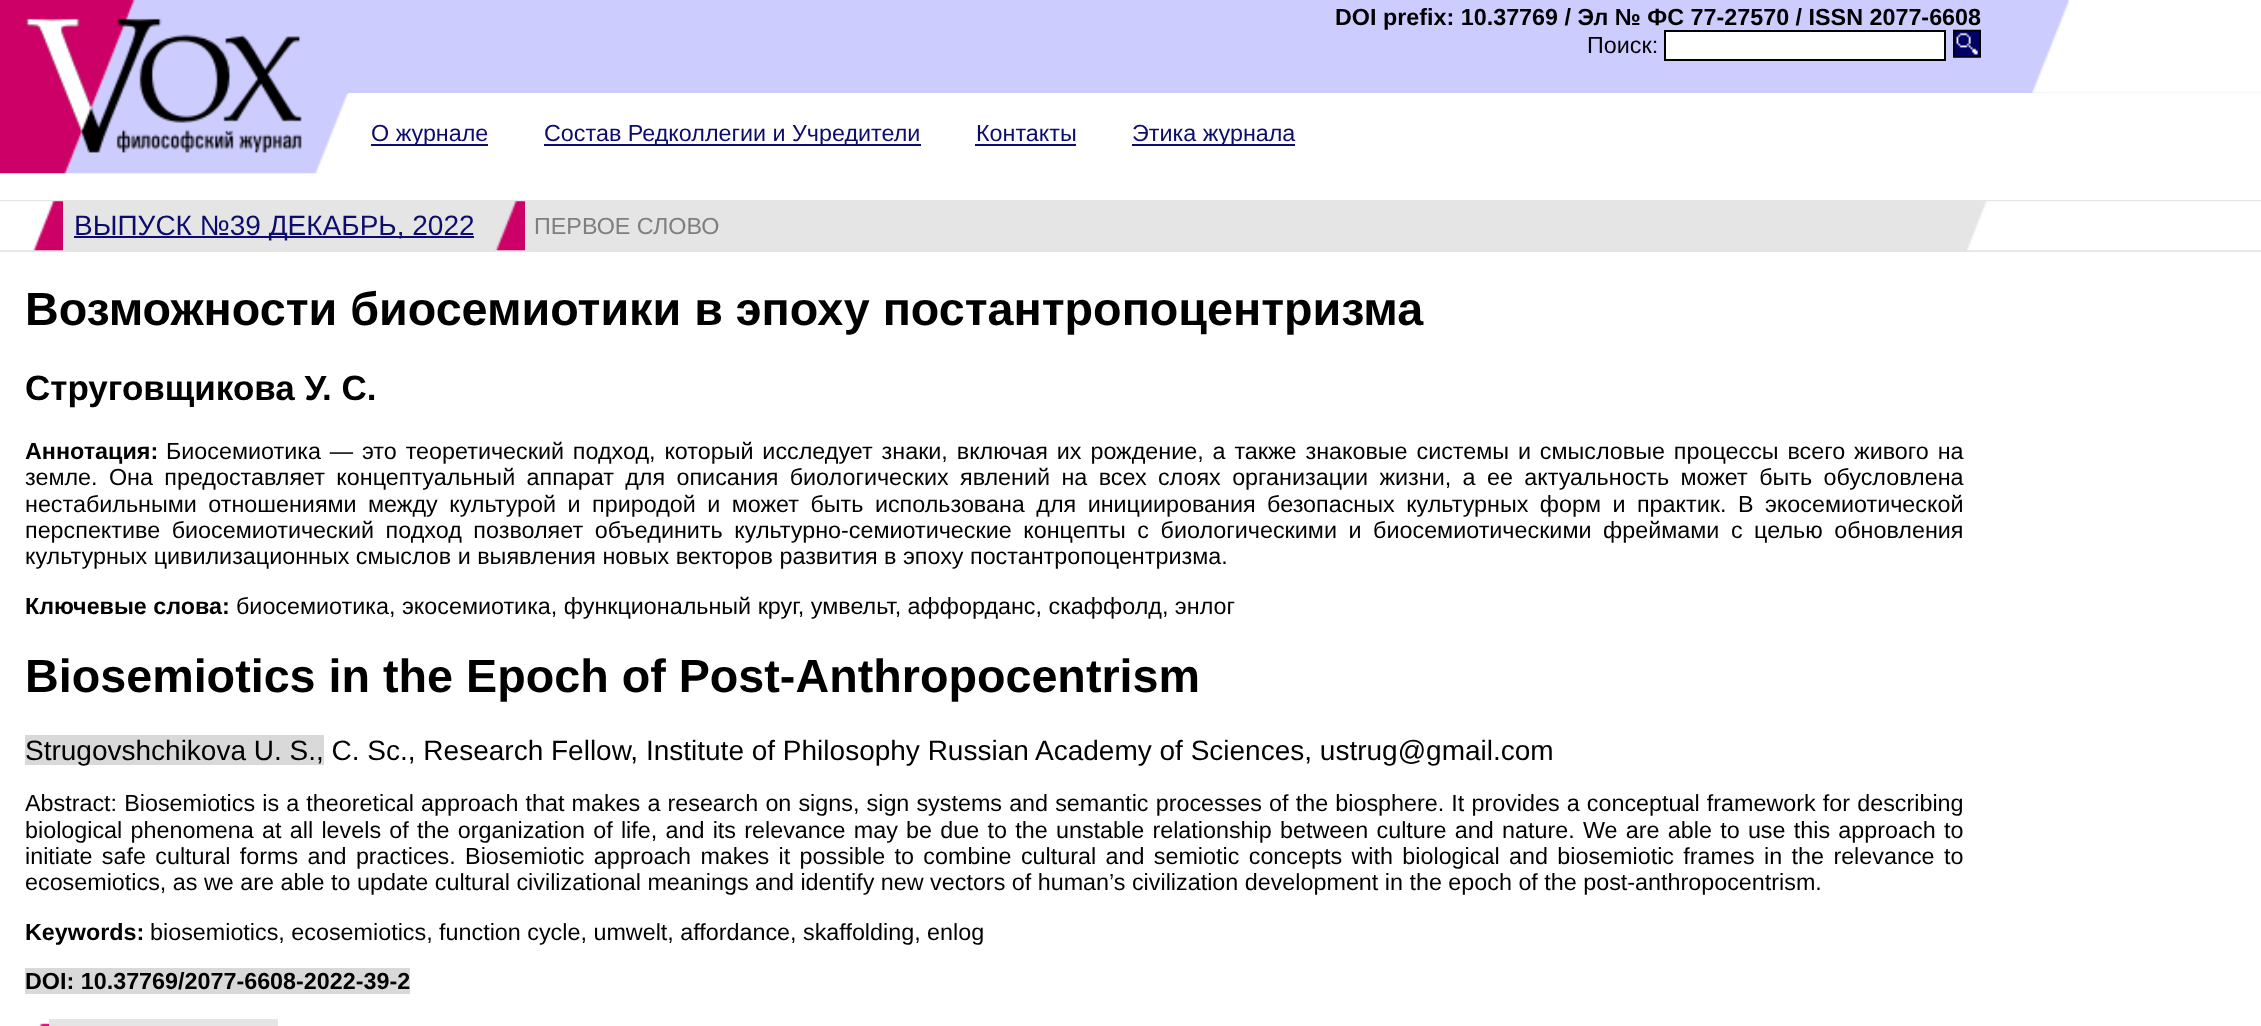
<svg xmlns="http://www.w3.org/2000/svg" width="2261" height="1026">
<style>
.a{font:bold 23.33px Liberation Sans;fill:#000}
.b{font:23.33px Liberation Sans;fill:#000}
.c{font:23.33px Liberation Sans;fill:#0c0c6d}
.d{font:28px Liberation Sans;fill:#0c0c6d}
.e{font:23.33px Liberation Sans;fill:#7f7f7f}
.f{font:bold 46.7px Liberation Sans;fill:#000}
.g{font:bold 35px Liberation Sans;fill:#000}
.h{font:28px Liberation Sans;fill:#000}
</style>
<rect width="100%" height="100%" fill="#fff"/>
<path fill="#ccf" d="M348 0h1913v93H348z"/>
<image href="1.png" x="0" y="0" width="349" height="174"/>
<image href="2.png" x="2031" y="0" width="230" height="93"/>
<path fill="#fff" stroke="#000" stroke-width="2" d="M1665 31h280v29H1665z"/>
<path fill="#0c0c6d" d="M371 144h117v2H371z"/>
<path fill="#0c0c6d" d="M544 144h377v2H544z"/>
<path fill="#0c0c6d" d="M975 144h101v2H975z"/>
<path fill="#0c0c6d" d="M1132 144h163v2H1132z"/>
<path fill="#e5e5e5" d="M0 200h2261v52H0z"/>
<image href="4.png" x="1967" y="201" width="294" height="50"/>
<image href="5.png" x="0" y="201" width="63" height="50"/>
<path fill="#0c0c6d" d="M74 236h400v2H74z"/>
<image href="6.png" x="495" y="201" width="30" height="50"/>
<path fill="#d9d9d9" d="M25 735h299v30H25z"/>
<path fill="#d9d9d9" d="M25 968h385v26H25z"/>
<image href="7.png" x="39" y="1023" width="10" height="3"/>
<path fill="#e5e5e5" d="M49 1019h229v7H49z"/>
<text class="a" x="1335" y="25">DOI prefix: 10.37769 / Эл № ФС 77-27570 / ISSN 2077-6608</text>
<text class="b" x="1587" y="53">Поиск:</text>
<image href="3.png" x="1953" y="29" width="28" height="29"/>
<text class="c" x="371" y="141">О журнале</text>
<text class="c" x="544" y="141">Состав Редколлегии и Учредители</text>
<text class="c" x="976" y="141">Контакты</text>
<text class="c" x="1132" y="141">Этика журнала</text>
<text class="d" x="74" y="235">ВЫПУСК №39 ДЕКАБРЬ, 2022</text>
<text class="e" x="534" y="234">ПЕРВОЕ СЛОВО</text>
<text class="f" x="25" y="325">Возможности биосемиотики в эпоху постантропоцентризма</text>
<text class="g" x="25" y="400">Струговщикова У. С.</text>
<text class="a" x="25" y="459">Аннотация:</text>
<text class="b" x="166" y="459" word-spacing="2.4">Биосемиотика — это теоретический подход, который исследует знаки, включая их рождение, а также знаковые системы и смысловые процессы всего живого на</text>
<text class="b" x="25" y="485" word-spacing="4.9">земле. Она предоставляет концептуальный аппарат для описания биологических явлений на всех слоях организации жизни, а ее актуальность может быть обусловлена</text>
<text class="b" x="25" y="512" word-spacing="5">нестабильными отношениями между культурой и природой и может быть использована для инициирования безопасных культурных форм и практик. В экосемиотической</text>
<text class="b" x="25" y="538" word-spacing="5.1">перспективе биосемиотический подход позволяет объединить культурно-семиотические концепты с биологическими и биосемиотическими фреймами с целью обновления</text>
<text class="b" x="25" y="564">культурных цивилизационных смыслов и выявления новых векторов развития в эпоху постантропоцентризма.</text>
<text class="a" x="25" y="614">Ключевые слова:</text>
<text class="b" x="236" y="614">биосемиотика, экосемиотика, функциональный круг, умвельт, аффорданс, скаффолд, энлог</text>
<text class="f" x="25" y="692">Biosemiotics in the Epoch of Post-Anthropocentrism</text>
<text class="h" x="25" y="760">Strugovshchikova U. S., C. Sc., Research Fellow, Institute of Philosophy Russian Academy of Sciences, ustrug@gmail.com</text>
<text class="b" x="25" y="811" word-spacing="0.65">Abstract: Biosemiotics is a theoretical approach that makes a research on signs, sign systems and semantic processes of the biosphere. It provides a conceptual framework for describing</text>
<text class="b" x="25" y="838" word-spacing="1.8">biological phenomena at all levels of the organization of life, and its relevance may be due to the unstable relationship between culture and nature. We are able to use this approach to</text>
<text class="b" x="25" y="864" word-spacing="2.9">initiate safe cultural forms and practices. Biosemiotic approach makes it possible to combine cultural and semiotic concepts with biological and biosemiotic frames in the relevance to</text>
<text class="b" x="25" y="890">ecosemiotics, as we are able to update cultural civilizational meanings and identify new vectors of human’s civilization development in the epoch of the post-anthropocentrism.</text>
<text class="a" x="25" y="940">Keywords:</text>
<text class="b" x="150" y="940">biosemiotics, ecosemiotics, function cycle, umwelt, affordance, skaffolding, enlog</text>
<text class="a" x="25" y="989">DOI: 10.37769/2077-6608-2022-39-2</text>
</svg>
